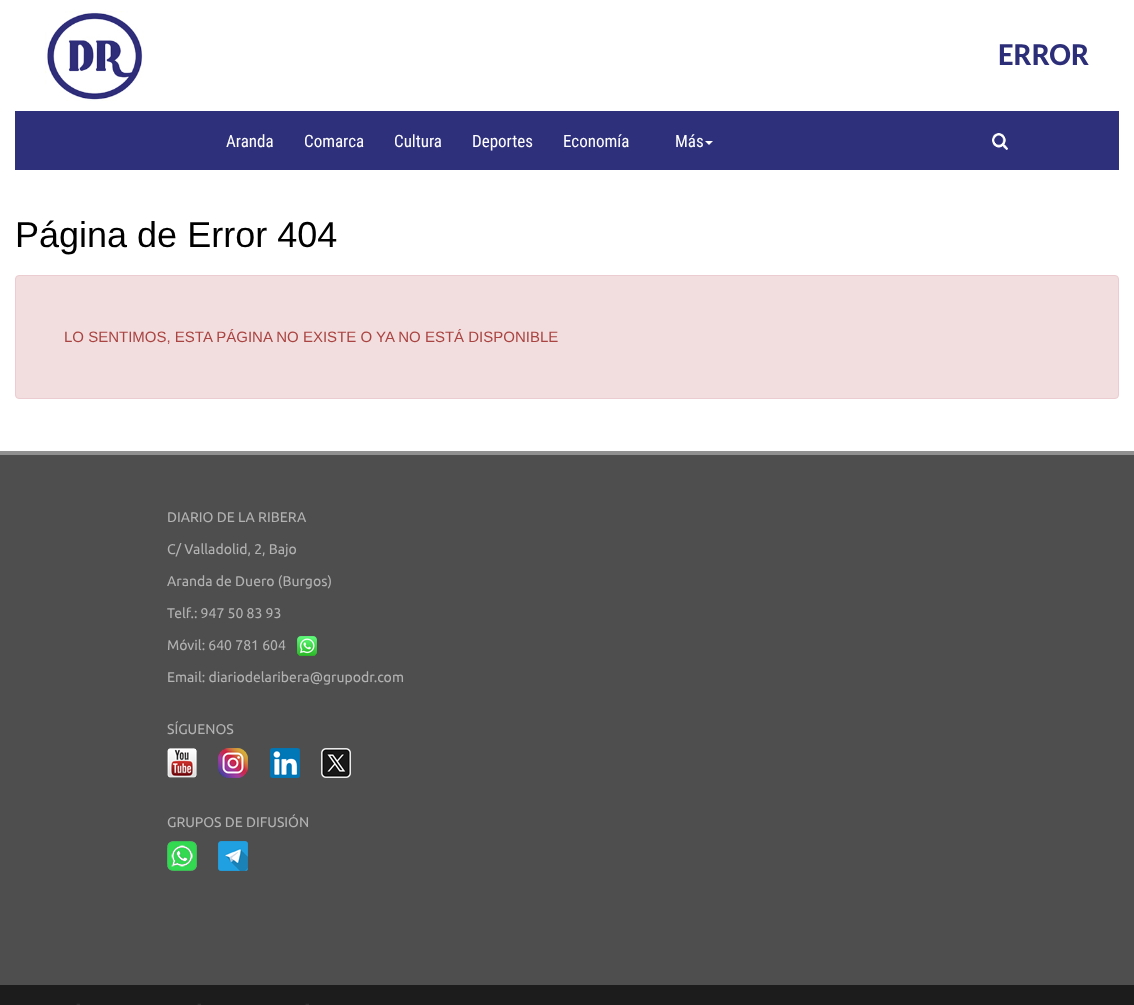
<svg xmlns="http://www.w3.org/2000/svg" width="1134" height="1005">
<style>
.a{font:bold 32px Carlito;fill:#2c2e78}
.b{font:17px Roboto Condensed;fill:#fff}
.c{font:36px Liberation Sans;fill:#000}
.d{font:15px Liberation Sans;fill:#a94442}
.e{font:14px Ubuntu;fill:#b2b2b2}
.f{font:14px Liberation Sans;fill:#333}
</style>
<rect width="100%" height="100%" fill="#fff"/>
<image href="1.png" x="45" y="11" width="99" height="90"/>
<path fill="#2e307b" d="M15 111h1104v59H15z"/>
<path fill="#fff" d="M705 141h8l-4 4z"/>
<image href="2.png" x="992" y="133" width="16" height="17"/>
<rect fill="#f2dede" stroke="#ebccd1" x="15.5" y="275.5" width="1103" height="123" rx="3.5"/>
<path fill="#4e4e4e" d="M0 455h1134v530H0z"/>
<path fill="#909090" d="M0 451h1134v4H0z"/>
<image href="3.png" x="297" y="636" width="20" height="20"/>
<image href="4.png" x="167" y="748" width="30" height="30"/>
<image href="5.png" x="218" y="748" width="30" height="30"/>
<image href="6.png" x="270" y="748" width="30" height="30"/>
<image href="7.png" x="321" y="748" width="30" height="30"/>
<image href="8.png" x="167" y="841" width="30" height="30"/>
<image href="9.png" x="218" y="841" width="30" height="30"/>
<path fill="#1c1c1c" d="M0 985h1134v20H0z"/>
<text class="a" x="998" y="65">ERROR</text>
<text class="b" x="226" y="147">Aranda</text>
<text class="b" x="304" y="147">Comarca</text>
<text class="b" x="394" y="147">Cultura</text>
<text class="b" x="472" y="147">Deportes</text>
<text class="b" x="563" y="147">Economía</text>
<text class="b" x="675" y="147">Más</text>
<text class="c" x="15" y="247">Página de Error 404</text>
<text class="d" x="64" y="342">LO SENTIMOS, ESTA PÁGINA NO EXISTE O YA NO ESTÁ DISPONIBLE</text>
<text class="e" x="167" y="522">DIARIO DE LA RIBERA</text>
<text class="e" x="167" y="554">C/ Valladolid, 2, Bajo</text>
<text class="e" x="167" y="586">Aranda de Duero (Burgos)</text>
<text class="e" x="167" y="618">Telf.: 947 50 83 93</text>
<text class="e" x="167" y="650">Móvil: 640 781 604</text>
<text class="e" x="167" y="682">Email: diariodelaribera@grupodr.com</text>
<text class="e" x="167" y="734">SÍGUENOS</text>
<text class="e" x="167" y="827">GRUPOS DE DIFUSIÓN</text>
<text class="f" x="76" y="1008">-</text>
<text class="f" x="197" y="1008">-</text>
<text class="f" x="305" y="1008">-</text>
</svg>
